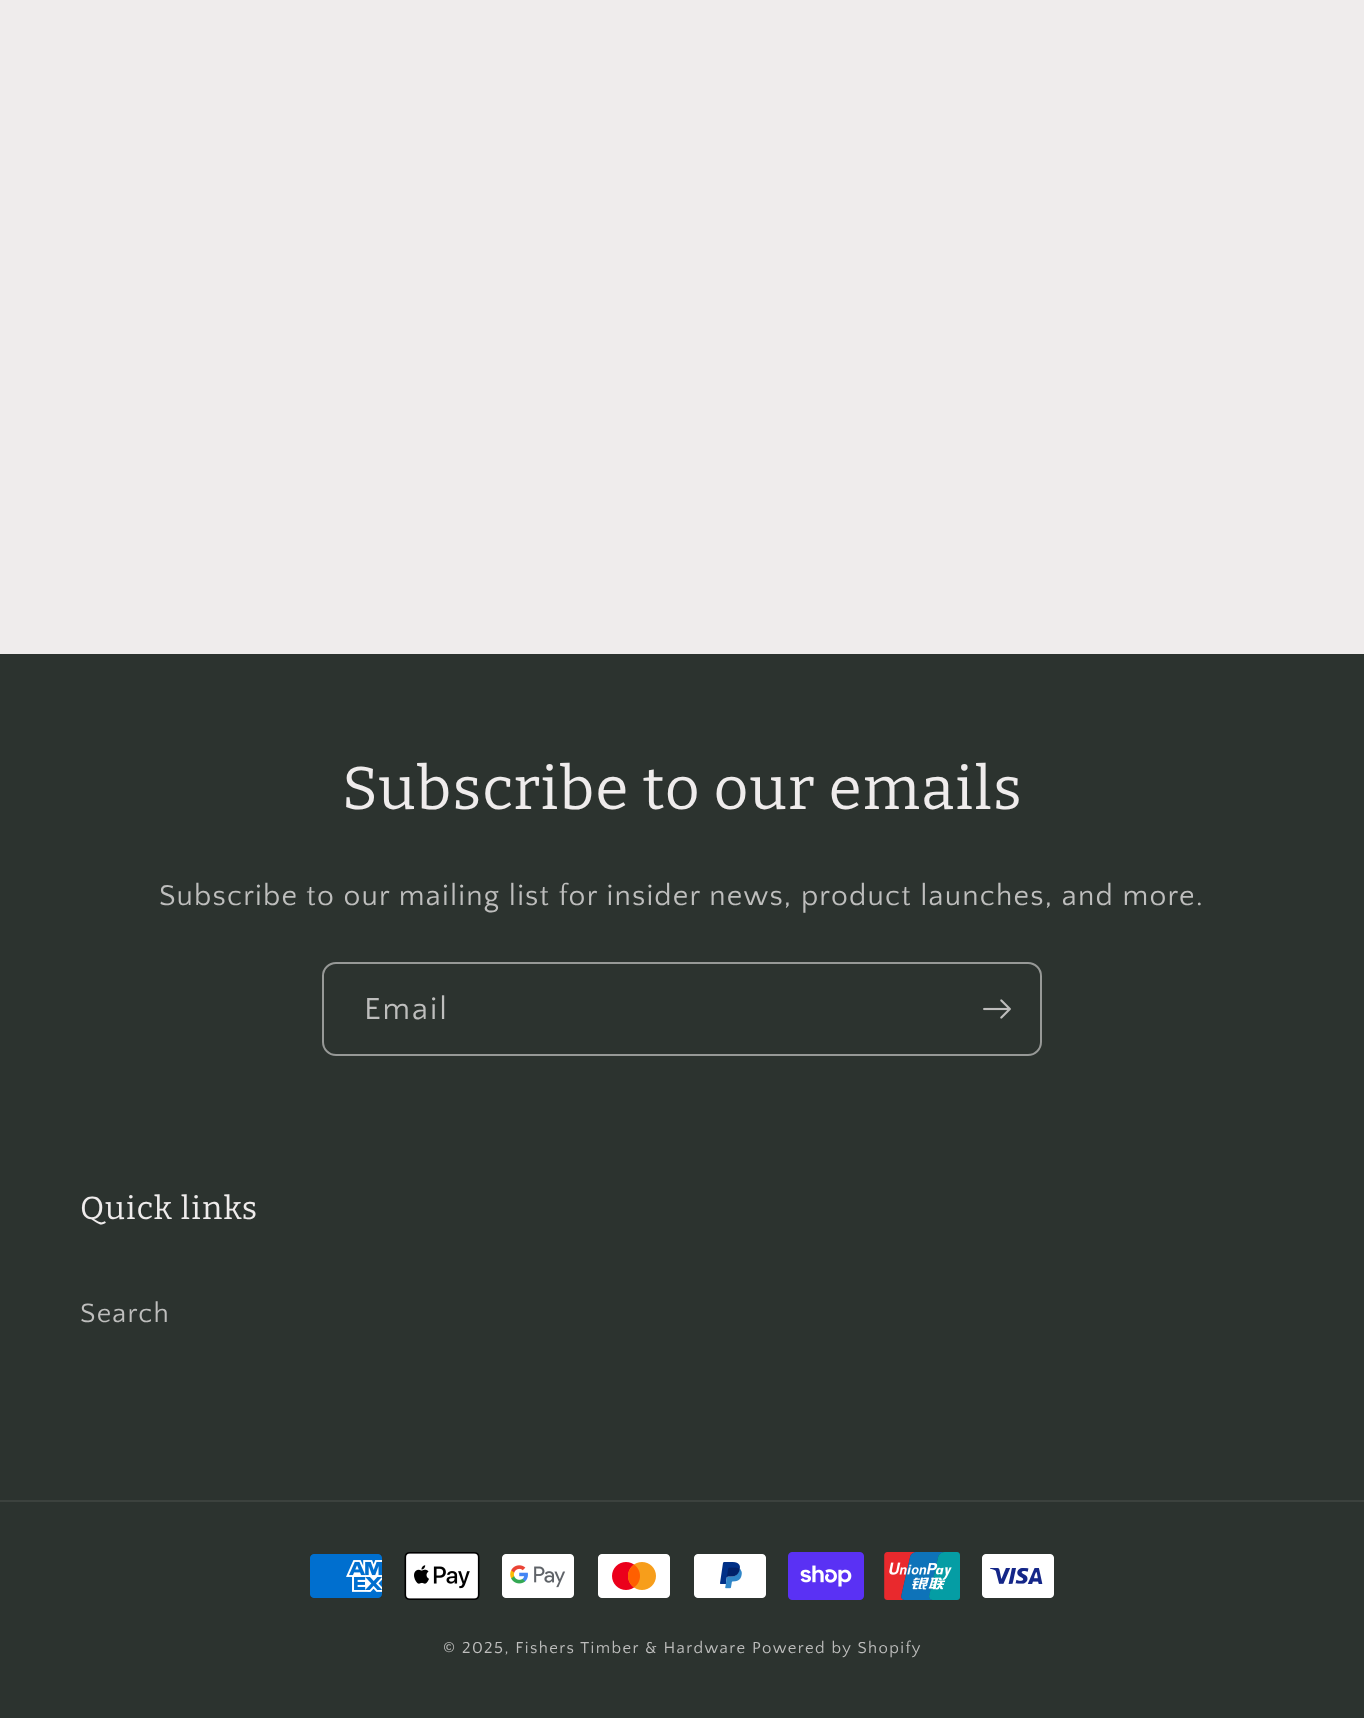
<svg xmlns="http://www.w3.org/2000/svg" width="1364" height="1718">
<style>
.a{font:60px Bitter;letter-spacing:1.2px;fill:#efecec}
.b{font:30px Quattrocento Sans;letter-spacing:1.2px;fill:#bebebd}
.c{font:32px Quattrocento Sans;letter-spacing:2px;fill:#bebebd}
.d{font:32px Bitter;letter-spacing:1.2px;fill:#efecec}
.e{font:28px Quattrocento Sans;letter-spacing:1.2px;fill:#bebebd}
.f{font:16.7px Quattrocento Sans;letter-spacing:1.4px;fill:#bebebd}
</style>
<rect width="100%" height="100%" fill="#efecec"/>
<path fill="#2c332f" d="M0 654h1364v1064H0z"/>
<rect fill="none" stroke="#979997" stroke-width="2" x="323" y="963" width="718" height="92" rx="13"/>
<image href="1.png" x="983" y="999" width="28" height="20"/>
<path fill="#3c423e" d="M0 1500h1364v2H0z"/>
<image href="2.png" x="310" y="1554" width="72" height="44"/>
<image href="3.png" x="404" y="1552" width="76" height="48"/>
<image href="4.png" x="502" y="1554" width="72" height="44"/>
<image href="5.png" x="598" y="1554" width="72" height="44"/>
<image href="6.png" x="694" y="1554" width="72" height="44"/>
<image href="7.png" x="788" y="1552" width="76" height="48"/>
<image href="8.png" x="884" y="1552" width="76" height="48"/>
<image href="9.png" x="982" y="1554" width="72" height="44"/>
<text class="a" x="342" y="809">Subscribe to our emails</text>
<text class="b" x="159" y="905">Subscribe to our mailing list for insider news, product launches, and more.</text>
<text class="c" x="364" y="1019">Email</text>
<text class="d" x="80" y="1219">Quick links</text>
<text class="e" x="80" y="1322">Search</text>
<text class="f" x="443" y="1653">© 2025, Fishers Timber &amp; Hardware</text>
<text class="f" x="752" y="1653">Powered by Shopify</text>
</svg>
